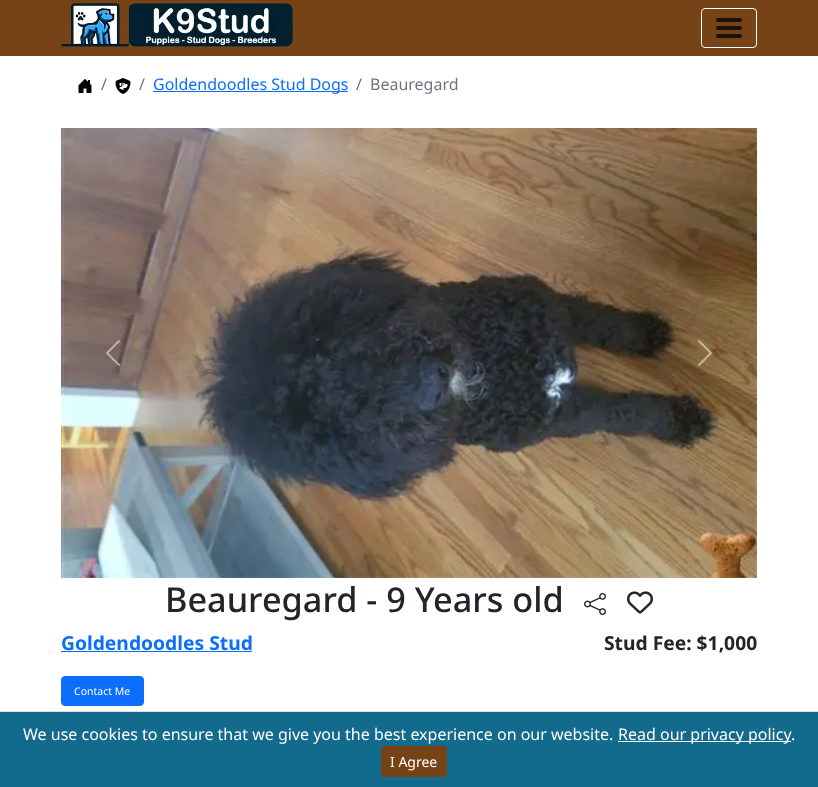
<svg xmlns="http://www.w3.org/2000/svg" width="818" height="787">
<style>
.a{font:16px Noto Sans;fill:#6c757d}
.b{font:16px Noto Sans;fill:#0d6efd}
.c{font:500 34.25px Noto Sans;fill:#212529}
.d{font:bold 19.25px Noto Sans;fill:#0d6efd}
.e{font:bold 19.25px Noto Sans;fill:#212529}
.f{font:10.5px Noto Sans;fill:#fff}
.g{font:16px Noto Sans;fill:#fff}
.h{font:14px Noto Sans;fill:#fff}
</style>
<rect width="100%" height="100%" fill="#fff"/>
<path fill="#764316" d="M0 0h818v56H0z"/>
<image href="1.png" x="61" y="2" width="233" height="45"/>
<rect fill="none" stroke="#fff" x="701.5" y="8.5" width="55" height="39" rx="3.5"/>
<path fill="none" stroke="#1e1106" stroke-width="4" stroke-linecap="round" d="M718 20h22m-22 8h22m-22 8h22"/>
<image href="2.png" x="78" y="79" width="14" height="14"/>
<image href="3.png" x="115" y="78" width="16" height="16"/>
<path fill="#0d6efd" d="M153 91h195v1H153z"/>
<image href="4.png" x="61" y="128" width="696" height="450"/>
<image href="5.png" x="106" y="340" width="14" height="26"/>
<image href="6.png" x="698" y="340" width="14" height="26"/>
<image href="7.png" x="584" y="593" width="22" height="22"/>
<image href="8.png" x="627" y="591" width="26" height="23"/>
<path fill="#0d6efd" d="M61 651h191v1H61z"/>
<rect fill="#0d6efd" stroke="#0d6efd" x="61.5" y="676.5" width="82" height="29" rx="3.5"/>
<path fill="#126a8c" d="M0 712h818v75H0z"/>
<path fill="#ddd" d="M0 711h818v1H0z"/>
<path fill="#fff" d="M618 741h173v1H618z"/>
<rect fill="#764316" stroke="#764316" x="381.5" y="746.5" width="65" height="30" rx="2.5"/>
<text class="a" x="101" y="90">/</text>
<text class="a" x="139" y="90">/</text>
<text class="b" x="153" y="90">Goldendoodles Stud Dogs</text>
<text class="a" x="356" y="90">/</text>
<text class="a" x="370" y="90">Beauregard</text>
<text class="c" x="165" y="612">Beauregard - 9 Years old</text>
<text class="d" x="61" y="650">Goldendoodles Stud</text>
<text class="e" x="604" y="650">Stud Fee: $1,000</text>
<text class="f" x="74" y="695">Contact Me</text>
<text class="g" x="23" y="740">We use cookies to ensure that we give you the best experience on our website.</text>
<text class="g" x="618" y="740">Read our privacy policy</text>
<text class="g" x="791" y="740">.</text>
<text class="h" x="390" y="767">I Agree</text>
</svg>
